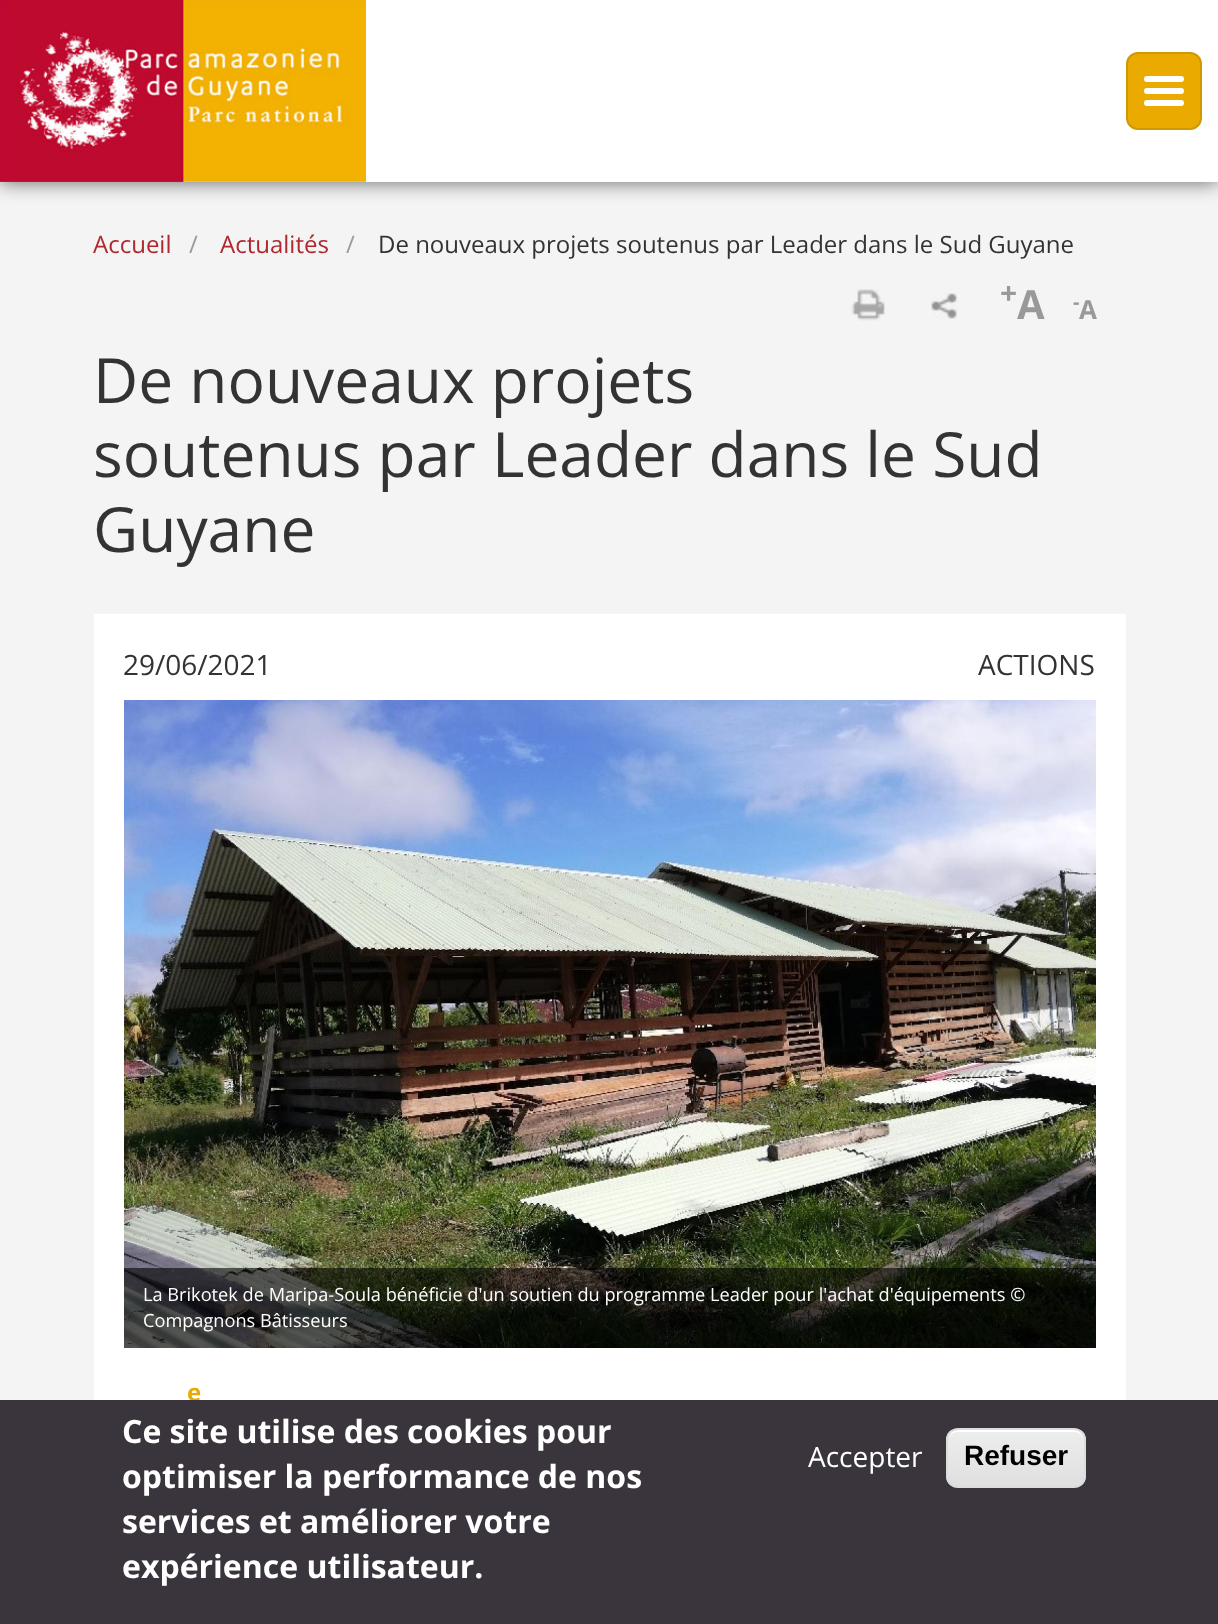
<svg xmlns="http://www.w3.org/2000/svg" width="1218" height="1624">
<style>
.a{font:24px Open Sans;fill:#af272f}
.b{font:24px Open Sans;fill:#999}
.c{font:24px Open Sans;fill:#333}
.d{font:bold 30px Open Sans;fill:#999}
.e{font:bold 40px Open Sans;fill:#999}
.f{font:bold 20px Open Sans;fill:#999}
.g{font:bold 26px Open Sans;fill:#999}
.h{font:62.25px Open Sans;fill:#333}
.i{font:28px Open Sans;fill:#333}
.j{font:18.2px Open Sans;fill:#fff}
.k{font:bold 24px Open Sans;fill:#eaaa00}
.l{font:bold 32px Open Sans;fill:#fff}
.m{font:28px Open Sans;fill:#fff}
.n{font:bold 28px Liberation Sans;fill:#000}
</style>
<defs>
<clipPath id="clip1"><rect x="946" y="1428" width="140" height="60" rx="12"/></clipPath>
<linearGradient id="g1" gradientUnits="userSpaceOnUse" x1="1016" y1="1430" x2="1016" y2="1486"><stop offset="0.05" stop-color="#ededed"/><stop offset="1" stop-color="#dfdfdf"/></linearGradient>
</defs>
<rect width="100%" height="100%" fill="#f4f4f4"/>
<path fill="#00000099" filter="blur(10px)" d="M0 0h1218v182H0z"/>
<path fill="#fff" d="M366 0h852v182H366z"/>
<image href="1.png" x="0" y="0" width="366" height="182"/>
<rect fill="#eaaa00" x="1126" y="52" width="76" height="78" rx="12"/>
<rect fill="none" stroke="#0000001a" stroke-width="2" x="1127" y="53" width="74" height="76" rx="11"/>
<rect fill="#fff" x="1144" y="76" width="40" height="6" rx="3"/>
<rect fill="#fff" x="1144" y="88" width="40" height="6" rx="3"/>
<rect fill="#fff" x="1144" y="100" width="40" height="6" rx="3"/>
<image href="2.png" x="850" y="289" width="35" height="32"/>
<image href="3.png" x="931" y="293" width="26" height="26"/>
<path fill="#fff" d="M94 614h1032v786H94z"/>
<image href="4.png" x="124" y="700" width="972" height="648"/>
<path fill="#00000099" d="M124 1268h972v80H124z"/>
<text class="a" x="93" y="253">Accueil</text>
<text class="b" x="189" y="253">/</text>
<text class="a" x="220" y="253">Actualités</text>
<text class="b" x="346" y="253">/</text>
<text class="c" x="378" y="253">De nouveaux projets soutenus par Leader dans le Sud Guyane</text>
<text class="d" x="1000" y="304">+</text>
<text class="e" x="1017" y="319">A</text>
<text class="f" x="1073" y="309">-</text>
<text class="g" x="1079" y="319">A</text>
<text class="h" x="93" y="403">De nouveaux projets</text>
<text class="h" x="93" y="477">soutenus par Leader dans le Sud</text>
<text class="h" x="93" y="552">Guyane</text>
<text class="i" x="123" y="675">29/06/2021</text>
<text class="i" x="978" y="675">ACTIONS</text>
<text class="j" x="143" y="1301">La Brikotek de Maripa-Soula bénéficie d'un soutien du programme Leader pour l'achat d'équipements ©</text>
<text class="j" x="143" y="1327">Compagnons Bâtisseurs</text>
<text class="k" x="187" y="1401">e</text>
<path fill="#3a353c" d="M0 1400h1218v224H0z"/>
<text class="l" x="122" y="1443">Ce site utilise des cookies pour</text>
<text class="l" x="122" y="1488">optimiser la performance de nos</text>
<text class="l" x="122" y="1533">services et améliorer votre</text>
<text class="l" x="122" y="1578">expérience utilisateur.</text>
<text class="m" x="808" y="1467">Accepter</text>
<g clip-path="url(#clip1)">
<path fill="url(#g1)" d="M946 1430h140v56H946z"/>
</g>
<path fill="#fff" d="M958 1432h116c6 0 10 4 10 10c0-17-17-12-29-12h-78c-12 0-29-5-29 12c0-6 4-10 10-10z"/>
<rect fill="none" stroke="#dcdcdc" stroke-width="2" x="947" y="1429" width="138" height="58" rx="11"/>
<text class="n" x="964" y="1465">Refuser</text>
</svg>
